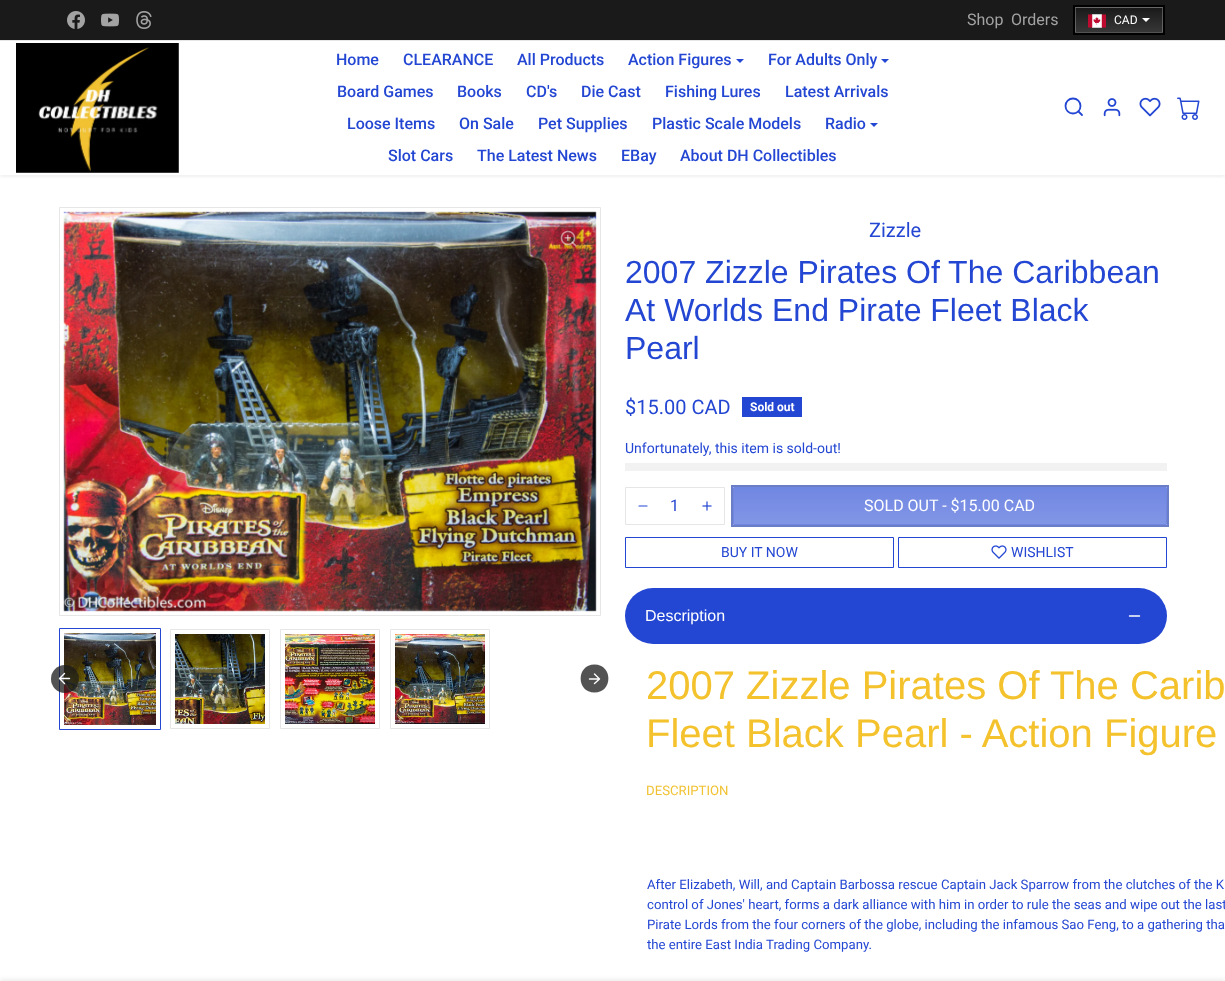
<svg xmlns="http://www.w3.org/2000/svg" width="1225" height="981">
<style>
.a{font:16px Roboto;fill:#a3a3a3}
.b{font:12px Roboto;fill:#fff}
.c{font:500 16px Roboto;fill:#2346d3}
.d{font:20px Roboto;fill:#2346d3}
.e{font:32px Liberation Sans;fill:#2346d3}
.f{font:bold 12px Roboto;fill:#fff}
.g{font:14px Roboto;fill:#2346d3}
.h{font:16px Roboto;fill:#2346d3}
.i{font:16px Roboto;fill:#fff}
.j{font:16px Liberation Sans;fill:#fff}
.k{font:40px Liberation Sans;fill:#f4c22c}
.l{font:13.2px Roboto;fill:#f1c232}
.m{font:13.2px Roboto;fill:#2346d3}
</style>
<defs>
<linearGradient id="g1" gradientUnits="userSpaceOnUse" x1="1119" y1="-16" x2="1119" y2="8"><stop offset="0" stop-color="#1a1a1a"/><stop offset="1" stop-color="#373737"/></linearGradient>
<linearGradient id="g2" gradientUnits="userSpaceOnUse" x1="1119" y1="8" x2="1119" y2="32"><stop offset="0" stop-color="#1a1a1a"/><stop offset="1" stop-color="#373737"/></linearGradient>
<clipPath id="clip1"><path d="M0 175h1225v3H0z"/></clipPath>
<linearGradient id="g3" gradientUnits="userSpaceOnUse" x1="950" y1="488" x2="950" y2="524"><stop offset="0" stop-color="#7087e2"/><stop offset="1" stop-color="#8296e6"/></linearGradient>
</defs>
<rect width="100%" height="100%" fill="#fff"/>
<path fill="#1a1a1a" d="M0 0h1225v40H0z"/>
<path fill="#e6e6e6" d="M0 40h1225v1H0z"/>
<image href="1.png" x="67" y="11" width="18" height="18"/>
<image href="2.png" x="101" y="13" width="18" height="14"/>
<image href="3.png" x="136" y="11" width="16" height="18"/>
<path fill="none" stroke="#000" stroke-width="2" d="M1074 6h90v28H1074z"/>
<path fill="url(#g1)" d="M1075 7h88v1H1075z"/>
<path fill="url(#g2)" d="M1075 10h88v22H1075z"/>
<path fill="none" stroke="#ffffff40" d="M1075.5 7.5h87v25H1075.5z"/>
<image href="4.png" x="1088" y="14" width="18" height="14"/>
<path fill="#fff" d="M1142 18h8l-4 4z"/>
<g clip-path="url(#clip1)">
<path fill="#1a1a1a12" filter="blur(2px)" d="M0 43h1225v134H0z"/>
</g>
<image href="5.png" x="16" y="43" width="163" height="130"/>
<path fill="#2346d3" d="M736 59h8l-4 4z"/>
<path fill="#2346d3" d="M881 59h8l-4 4z"/>
<path fill="#2346d3" d="M870 123h8l-4 4z"/>
<circle fill="none" stroke="#2346d3" stroke-width="1.8" cx="1073" cy="106" r="7.5"/>
<path fill="none" stroke="#2346d3" stroke-width="1.8" stroke-linecap="round" stroke-linejoin="round" d="M1082 115l-3.5-3.5"/>
<image href="6.png" x="1103" y="98" width="18" height="19"/>
<image href="7.png" x="1139" y="97" width="22" height="20"/>
<image href="8.png" x="1177" y="97" width="23" height="23"/>
<path fill="none" stroke="#e6e6e6" d="M59.5 207.5h541v408H59.5z"/>
<image href="9.png" x="63" y="211" width="534" height="401"/>
<circle fill="#0000001f" cx="569" cy="239" r="16"/>
<image href="10.png" x="560" y="230" width="17" height="17"/>
<path fill="none" stroke="#2346d3" d="M59.5 628.5h101v101H59.5z"/>
<image href="11.png" x="64" y="633" width="92" height="92"/>
<path fill="none" stroke="#e6e6e6" d="M170.5 629.5h99v99H170.5z"/>
<image href="12.png" x="175" y="634" width="90" height="90"/>
<path fill="none" stroke="#e6e6e6" d="M280.5 629.5h99v99H280.5z"/>
<image href="13.png" x="285" y="634" width="90" height="90"/>
<path fill="none" stroke="#e6e6e6" d="M390.5 629.5h99v99H390.5z"/>
<image href="14.png" x="395" y="634" width="90" height="90"/>
<circle fill="#1a1a1abf" cx="65" cy="679" r="14"/>
<path fill="none" stroke="#fff" stroke-width="1.4" stroke-linecap="round" stroke-linejoin="round" d="M69.5 678.5h-9.5m4.5-5l-5 5l5 5"/>
<path fill="#535353" d="M594.5 692.5c-18.5 0-18.5-28 0-28c18.5 0 18.5 28 0 28z"/>
<path fill="none" stroke="#fff" stroke-width="1.4" stroke-linecap="round" stroke-linejoin="round" d="M589.5 679h9.5m-4.5 4.5l5-4.5l-5-5"/>
<path fill="#2346d3" d="M742 397h60v20H742z"/>
<path fill="#f2f2f2" d="M625 463h542v8H625z"/>
<path fill="none" stroke="#e6e6e6" d="M625.5 487.5h99v37H625.5z"/>
<path fill="none" stroke="#2346d3" stroke-width="1.2" stroke-linecap="round" stroke-linejoin="round" d="M639 506h8"/>
<image href="15.png" x="702" y="501" width="10" height="10"/>
<path fill="none" stroke="#6b7dc6" stroke-width="2" d="M732 486h436v40H732z"/>
<path fill="url(#g3)" d="M734 488h432v36H734z"/>
<path fill="none" stroke="#7087e2" d="M733.5 487.5h433v37H733.5z"/>
<path fill="none" stroke="#2346d3" d="M625.5 537.5h268v30H625.5z"/>
<path fill="none" stroke="#2346d3" d="M898.5 537.5h268v30H898.5z"/>
<image href="16.png" x="991" y="545" width="16" height="14"/>
<rect fill="#2346d3" x="625" y="588" width="542" height="56" rx="28"/>
<path fill="none" stroke="#fff" stroke-width="1.4" stroke-linecap="round" stroke-linejoin="round" d="M1139.5 616h-10"/>
<path fill="#00000012" filter="blur(2px)" d="M0 979h1225v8H0z"/>
<text class="a" x="967" y="25">Shop</text>
<text class="a" x="1011" y="25">Orders</text>
<text class="b" x="1114" y="24">CAD</text>
<text class="c" x="336" y="65">Home</text>
<text class="c" x="403" y="65">CLEARANCE</text>
<text class="c" x="517" y="65">All Products</text>
<text class="c" x="628" y="65">Action Figures</text>
<text class="c" x="768" y="65">For Adults Only</text>
<text class="c" x="337" y="97">Board Games</text>
<text class="c" x="457" y="97">Books</text>
<text class="c" x="526" y="97">CD's</text>
<text class="c" x="581" y="97">Die Cast</text>
<text class="c" x="665" y="97">Fishing Lures</text>
<text class="c" x="785" y="97">Latest Arrivals</text>
<text class="c" x="347" y="129">Loose Items</text>
<text class="c" x="459" y="129">On Sale</text>
<text class="c" x="538" y="129">Pet Supplies</text>
<text class="c" x="652" y="129">Plastic Scale Models</text>
<text class="c" x="825" y="129">Radio</text>
<text class="c" x="388" y="161">Slot Cars</text>
<text class="c" x="477" y="161">The Latest News</text>
<text class="c" x="621" y="161">EBay</text>
<text class="c" x="680" y="161">About DH Collectibles</text>
<text class="d" x="869" y="237">Zizzle</text>
<text class="e" x="625" y="283">2007 Zizzle Pirates Of The Caribbean</text>
<text class="e" x="625" y="321">At Worlds End Pirate Fleet Black</text>
<text class="e" x="625" y="359">Pearl</text>
<text class="d" x="625" y="414">$15.00 CAD</text>
<text class="f" x="750" y="411">Sold out</text>
<text class="g" x="625" y="453">Unfortunately, this item is sold-out!</text>
<text class="h" x="670" y="511">1</text>
<text class="i" x="864" y="511">SOLD OUT - $15.00 CAD</text>
<text class="g" x="721" y="557">BUY IT NOW</text>
<text class="g" x="1011" y="557">WISHLIST</text>
<text class="j" x="645" y="621">Description</text>
<text class="k" x="646" y="699">2007 Zizzle Pirates Of The Carib</text>
<text class="k" x="646" y="747">Fleet Black Pearl - Action Figure</text>
<text class="l" x="646" y="795">DESCRIPTION</text>
<text class="m" x="647" y="889">After Elizabeth, Will, and Captain Barbossa rescue Captain Jack Sparrow from the clutches of the K</text>
<text class="m" x="647" y="909">control of Jones' heart, forms a dark alliance with him in order to rule the seas and wipe out the last</text>
<text class="m" x="647" y="929">Pirate Lords from the four corners of the globe, including the infamous Sao Feng, to a gathering tha</text>
<text class="m" x="647" y="949">the entire East India Trading Company.</text>
</svg>
